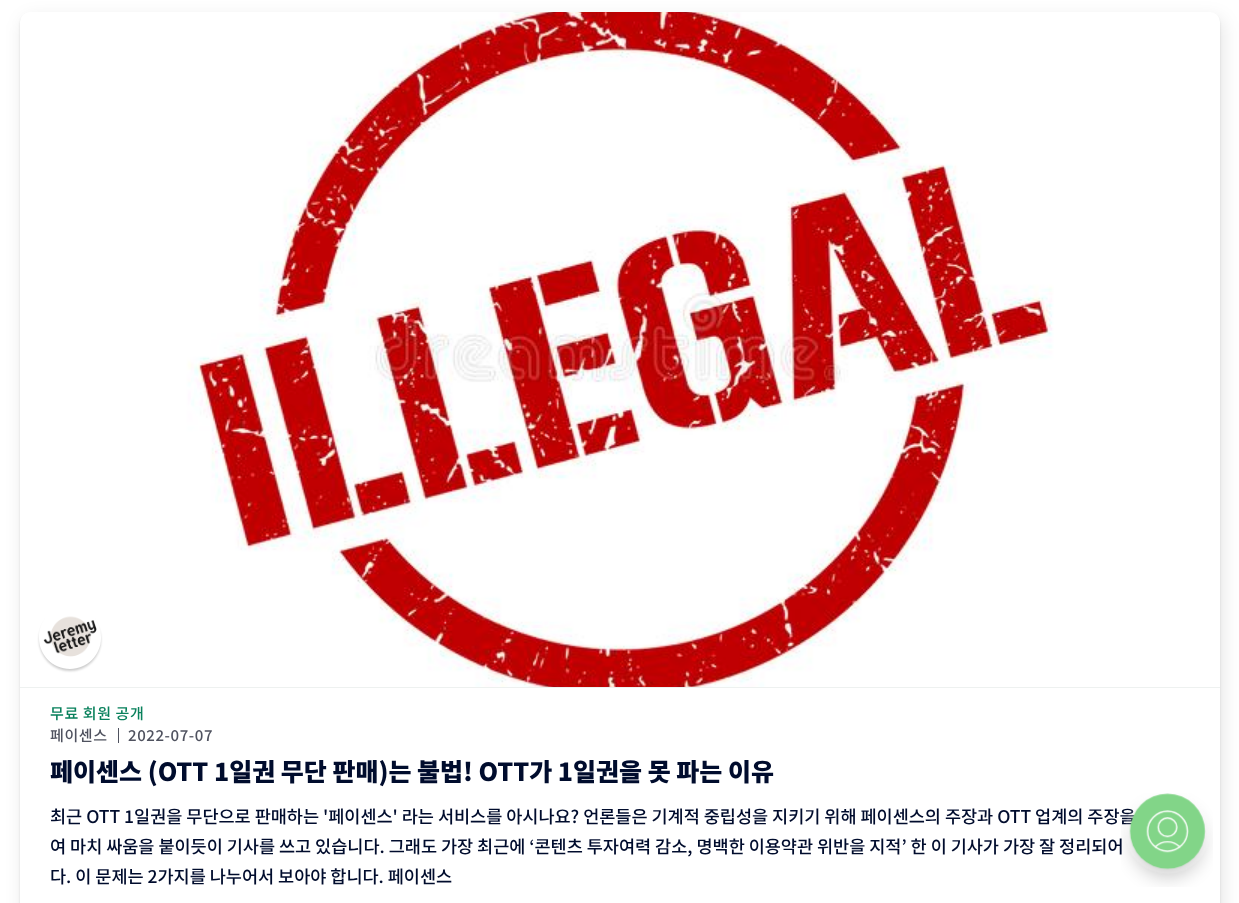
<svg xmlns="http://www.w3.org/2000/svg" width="1239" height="903">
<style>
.a{font:500 15px Noto Sans KR;letter-spacing:0.6px;fill:#09815c}
.b{font:500 15px Noto Sans KR;letter-spacing:0.6px;fill:#4f525f}
.c{font:900 25px Noto Sans KR;fill:#000c2d}
.d{font:500 17.5px Noto Sans KR;fill:#000c2d}
</style>
<defs>
<clipPath id="clip1"><path d="M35 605h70v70h-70zm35 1c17 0 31 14 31 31v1c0 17-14 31-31 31c-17 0-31-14-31-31v-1c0-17 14-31 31-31z" clip-rule="evenodd"/></clipPath>
</defs>
<rect width="100%" height="100%" fill="#fff"/>
<rect fill="#0000001a" filter="blur(1px)" x="20" y="14" width="1200" height="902" rx="10"/>
<rect fill="#0000001a" filter="blur(9px)" x="23" y="18" width="1200" height="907" rx="10"/>
<path fill="#eef1f0" d="M30 13h1180c5.5 0 10 4.5 10 10v665h-1200v-665c0-5.5 4.5-10 10-10z"/>
<image href="1.png" x="20" y="12" width="1200" height="675"/>
<g clip-path="url(#clip1)">
<rect fill="#00000033" filter="blur(1px)" x="39" y="609" width="62" height="62" rx="31"/>
</g>
<image href="2.png" x="43" y="616" width="54" height="41"/>
<path fill="#fff" d="M20 688h1200v215H20z"/>
<path fill="#4f525f" d="M118 728h1v15H118z"/>
<text class="a" x="50" y="719">무료 회원 공개</text>
<text class="b" x="50" y="741">페이센스</text>
<text class="b" x="128" y="741">2022-07-07</text>
<text class="c" x="50" y="781" word-spacing="-0.1">페이센스 (OTT 1일권 무단 판매)는 불법! OTT가 1일권을 못 파는 이유</text>
<text class="d" x="50" y="823">최근 OTT 1일권을 무단으로 판매하는 '페이센스' 라는 서비스를 아시나요? 언론들은 기계적 중립성을 지키기 위해 페이센스의 주장과 OTT 업계의 주장을</text>
<text class="d" x="50" y="853">여 마치 싸움을 붙이듯이 기사를 쓰고 있습니다. 그래도 가장 최근에 ‘콘텐츠 투자여력 감소, 명백한 이용약관 위반을 지적’ 한 이 기사가 가장 잘 정리되어</text>
<text class="d" x="50" y="883">다. 이 문제는 2가지를 나누어서 보아야 합니다. 페이센스</text>
<image href="3.png" x="1121" y="793" width="92" height="94"/>
</svg>
